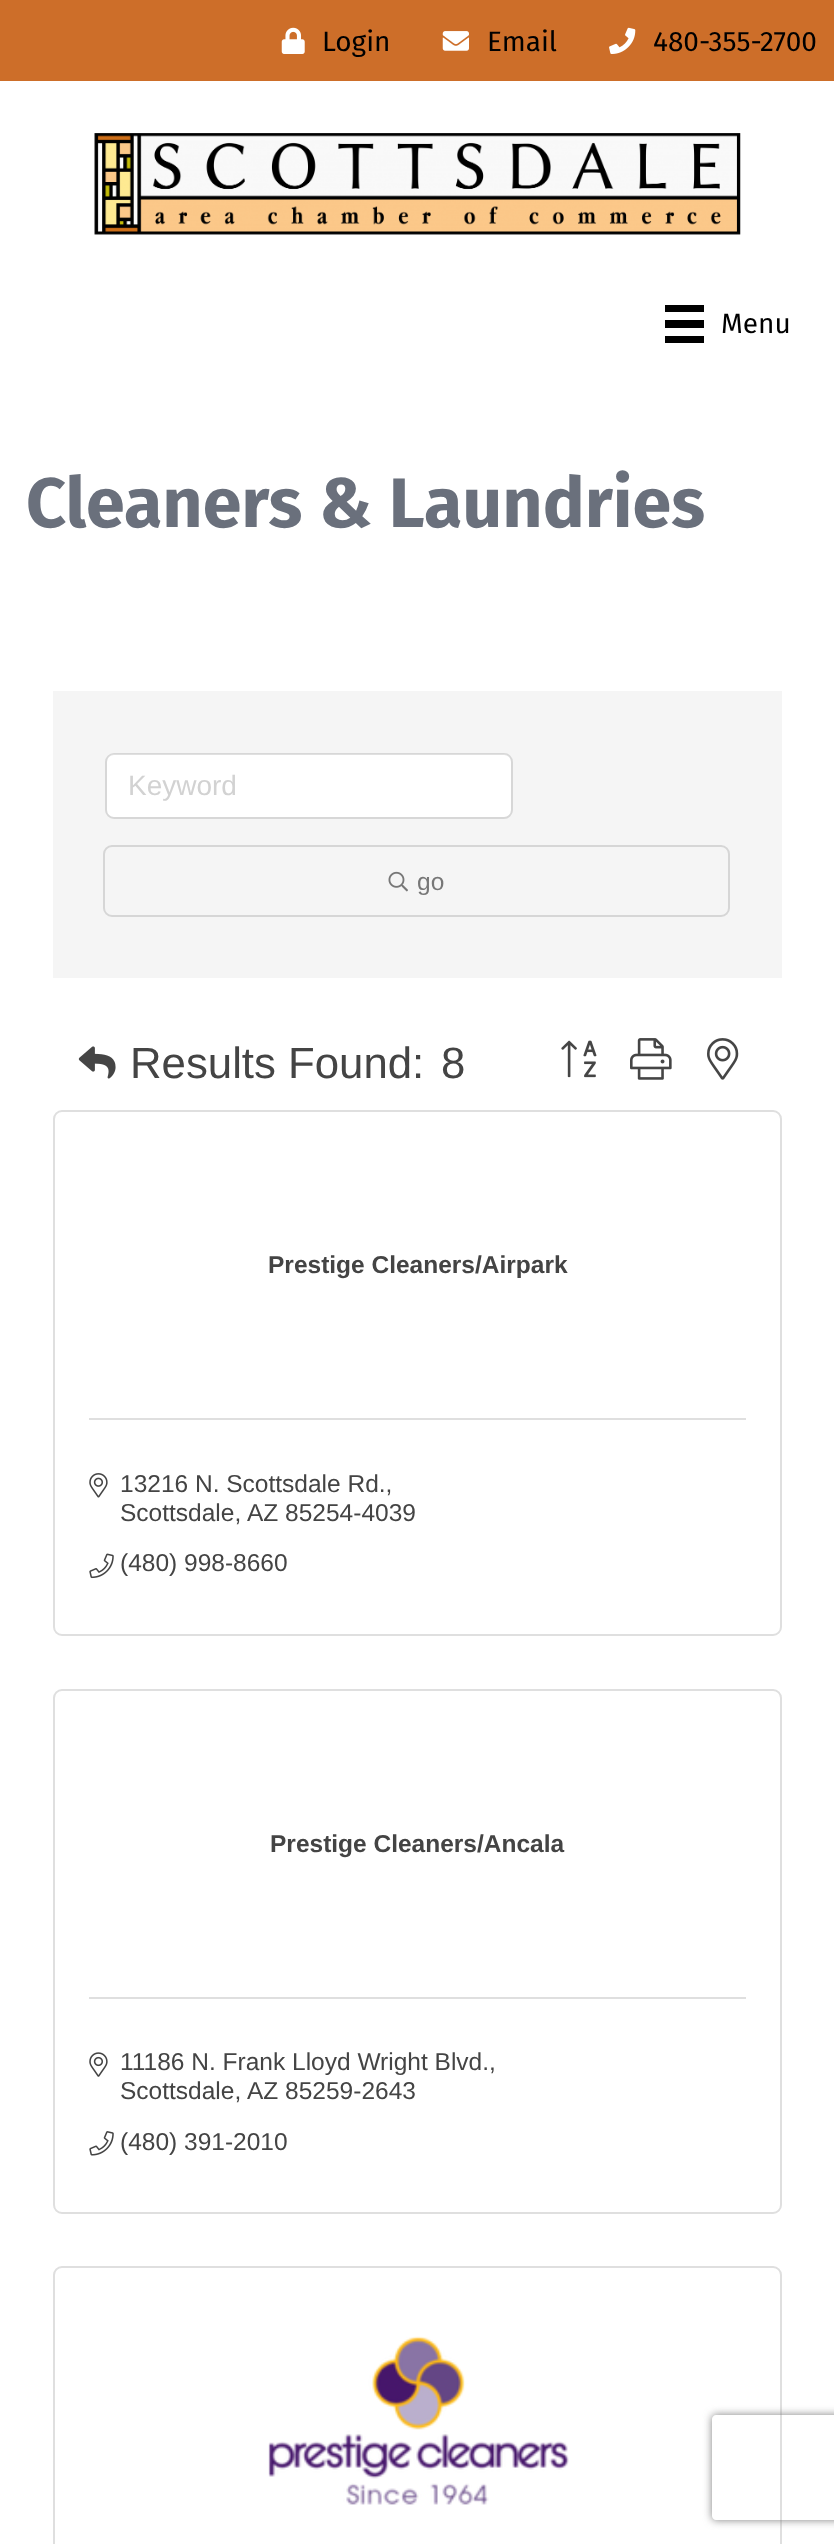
<svg xmlns="http://www.w3.org/2000/svg" width="834" height="2544">
<style>
.a{font:28px Fira Sans;fill:#000}
.b{font:bold 70px Fira Sans;fill:#6a707c}
.c{font:28px Liberation Sans;fill:#d2d2d2}
.d{font:24.5px Liberation Sans;fill:#777}
.e{font:43.75px Liberation Sans;fill:#444}
.f{font:bold 24.5px Liberation Sans;fill:#444}
.g{font:24.5px Liberation Sans;fill:#444}
</style>
<defs>
<clipPath id="clip1"><path d="M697 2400h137v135h-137zm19 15h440c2 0 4 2 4 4v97c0 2-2 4-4 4h-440c-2 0-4-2-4-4v-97c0-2 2-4 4-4z" clip-rule="evenodd"/></clipPath>
</defs>
<rect width="100%" height="100%" fill="#fff"/>
<path fill="#cd6e29" d="M0 0h834v81H0z"/>
<image href="1.png" x="281" y="27" width="24" height="27"/>
<image href="2.png" x="442" y="31" width="27" height="20"/>
<image href="3.png" x="609" y="27" width="27" height="27"/>
<image href="4.png" x="94" y="133" width="647" height="102"/>
<path fill="#000" d="M665 305h39v7H665z"/>
<path fill="#000" d="M665 320h39v8H665z"/>
<path fill="#000" d="M665 336h39v7H665z"/>
<path fill="#f5f5f5" d="M53 691h729v287H53z"/>
<rect fill="#fff" x="107" y="754" width="404" height="63" rx="7"/>
<rect fill="none" stroke="#0000001f" stroke-width="2" x="106" y="754" width="406" height="64" rx="8"/>
<rect fill="none" stroke="#d6d6d6" stroke-width="2" x="104" y="846" width="625" height="70" rx="8"/>
<image href="5.png" x="388" y="871" width="20" height="21"/>
<image href="6.png" x="78" y="1046" width="38" height="33"/>
<image href="7.png" x="561" y="1040" width="36" height="38"/>
<image href="8.png" x="630" y="1038" width="42" height="42"/>
<image href="9.png" x="707" y="1038" width="32" height="42"/>
<rect fill="none" stroke="#dfdfdf" stroke-width="2" x="54" y="1111" width="727" height="524" rx="8"/>
<path fill="#dfdfdf" d="M89 1418h657v2H89z"/>
<image href="10.png" x="89" y="1473" width="19" height="25"/>
<image href="11.png" x="89" y="1553" width="25" height="26"/>
<rect fill="none" stroke="#dfdfdf" stroke-width="2" x="54" y="1690" width="727" height="523" rx="8"/>
<path fill="#dfdfdf" d="M89 1997h657v2H89z"/>
<image href="12.png" x="89" y="2052" width="19" height="25"/>
<image href="13.png" x="89" y="2131" width="25" height="25"/>
<rect fill="none" stroke="#dfdfdf" stroke-width="2" x="54" y="2267" width="727" height="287" rx="8"/>
<image href="14.png" x="268" y="2336" width="301" height="169"/>
<g clip-path="url(#clip1)">
<rect fill="#808080" filter="blur(4.5px)" x="712" y="2415" width="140" height="105" rx="4"/>
</g>
<text class="a" x="322" y="51">Login</text>
<text class="a" x="487" y="51">Email</text>
<text class="a" x="653" y="51">480-355-2700</text>
<text class="a" x="721" y="333">Menu</text>
<text class="b" x="26" y="527">Cleaners &amp; Laundries</text>
<text class="c" x="128" y="795">Keyword</text>
<text class="d" x="417" y="890">go</text>
<text class="e" x="130" y="1078">Results Found:</text>
<text class="e" x="441" y="1078">8</text>
<text class="f" x="268" y="1273">Prestige Cleaners/Airpark</text>
<text class="g" x="120" y="1492">13216 N. Scottsdale Rd.,</text>
<text class="g" x="120" y="1521">Scottsdale,</text>
<text class="g" x="247" y="1521">AZ 85254-4039</text>
<text class="g" x="120" y="1571">(480) 998-8660</text>
<text class="f" x="270" y="1852">Prestige Cleaners/Ancala</text>
<text class="g" x="120" y="2070">11186 N. Frank Lloyd Wright Blvd.,</text>
<text class="g" x="120" y="2099">Scottsdale,</text>
<text class="g" x="247" y="2099">AZ 85259-2643</text>
<text class="g" x="120" y="2150">(480) 391-2010</text>
</svg>
